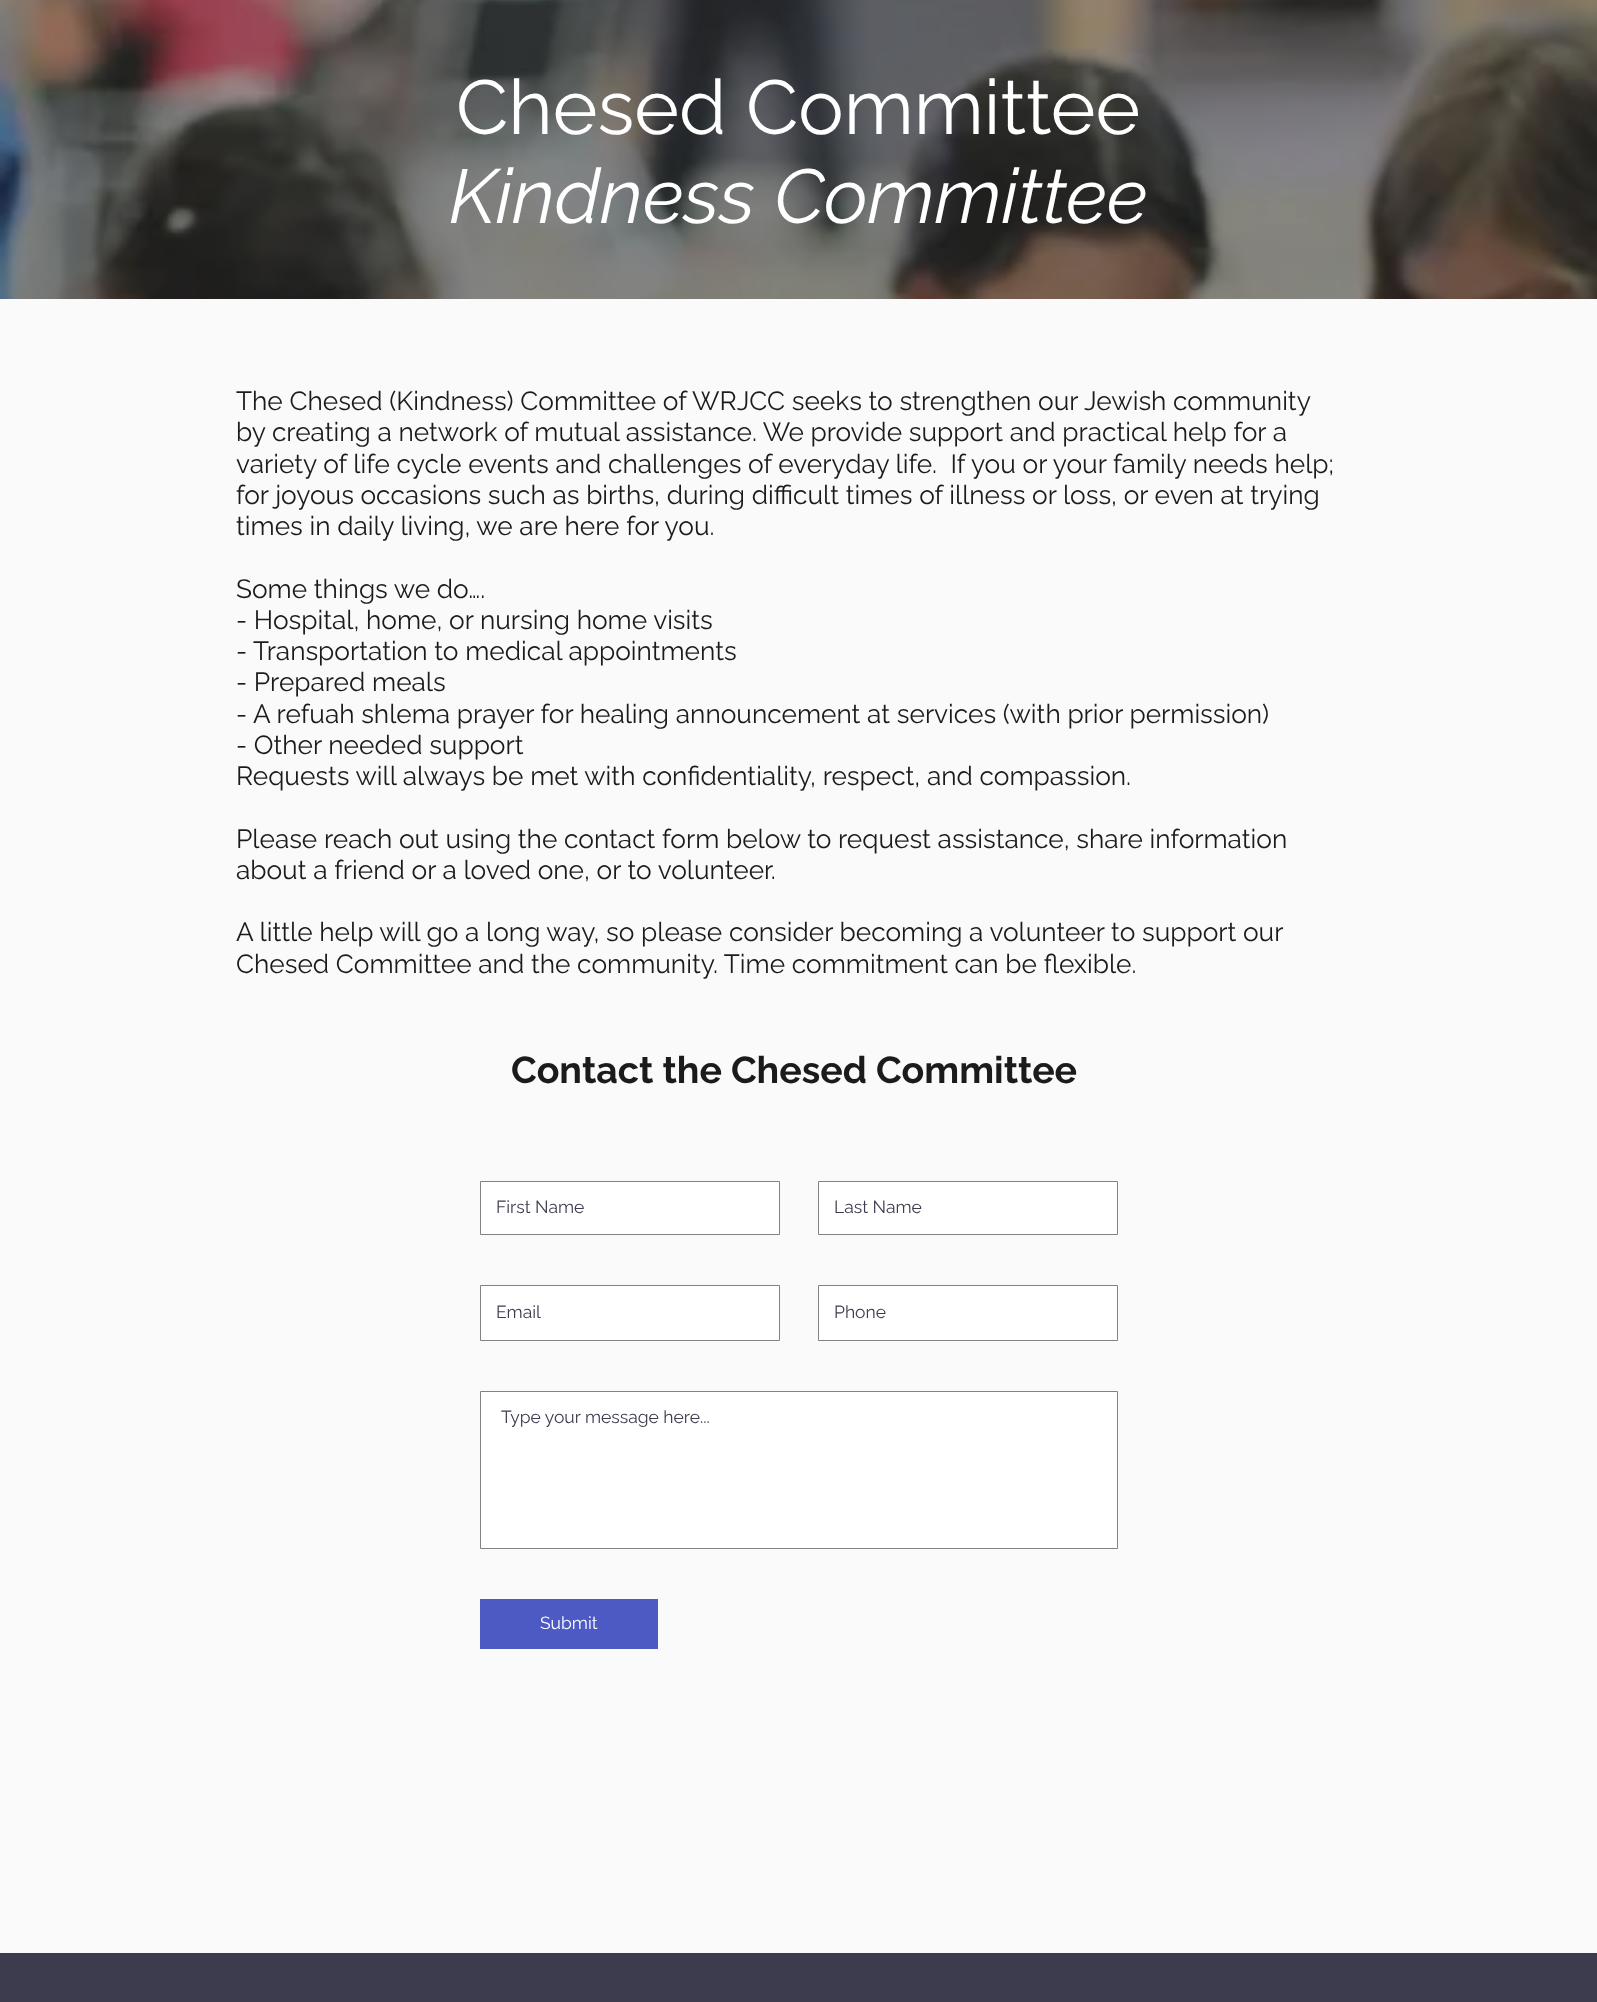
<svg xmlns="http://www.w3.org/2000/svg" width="1597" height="2002">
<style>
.a{font:76.25px Raleway;fill:#fff}
.b{font:italic 76.25px Raleway;fill:#fff}
.c{font:26.25px Raleway;fill:#1b1b1e}
.d{font:bold 37.5px Raleway;fill:#1b1b1e}
.e{font:17.5px Raleway;fill:#3c3c4e}
.f{font:17.5px Raleway;fill:#fff}
</style>
<rect width="100%" height="100%" fill="#2f2e2e"/>
<image href="1.png" x="0" y="0" width="1597" height="299"/>
<path fill="#fafafa" d="M0 299h1597v1654H0z"/>
<path fill="#fff" stroke="#828283" d="M480.5 1181.5h299v53H480.5z"/>
<path fill="#fff" stroke="#828283" d="M818.5 1181.5h299v53H818.5z"/>
<path fill="#fff" stroke="#828283" d="M480.5 1285.5h299v55H480.5z"/>
<path fill="#fff" stroke="#828283" d="M818.5 1285.5h299v55H818.5z"/>
<path fill="#fff" stroke="#828283" d="M480.5 1391.5h637v157H480.5z"/>
<path fill="#4e5ac3" d="M480 1599h178v50H480z"/>
<path fill="#3c3c4e" d="M0 1953h1597v49H0z"/>
<text class="a" x="456" y="134">Chesed Committee</text>
<text class="b" x="449" y="223">Kindness Committee</text>
<text class="c" x="236" y="410">The Chesed (Kindness) Committee of WRJCC seeks to strengthen our Jewish community</text>
<text class="c" x="236" y="441">by creating a network of mutual assistance. We provide support and practical help for a</text>
<text class="c" xml:space="preserve" x="236" y="473">variety of life cycle events and challenges of everyday life.  If you or your family needs help;</text>
<text class="c" x="236" y="504">for joyous occasions such as births, during difficult times of illness or loss, or even at trying</text>
<text class="c" x="236" y="535">times in daily living, we are here for you.</text>
<text class="c" x="236" y="598">Some things we do….</text>
<text class="c" x="236" y="629">- Hospital, home, or nursing home visits</text>
<text class="c" x="236" y="660">- Transportation to medical appointments</text>
<text class="c" x="236" y="691">- Prepared meals</text>
<text class="c" x="236" y="723">- A refuah shlema prayer for healing announcement at services (with prior permission)</text>
<text class="c" x="236" y="754">- Other needed support</text>
<text class="c" x="236" y="785">Requests will always be met with confidentiality, respect, and compassion.</text>
<text class="c" x="236" y="848">Please reach out using the contact form below to request assistance, share information</text>
<text class="c" x="236" y="879">about a friend or a loved one, or to volunteer.</text>
<text class="c" x="236" y="941">A little help will go a long way, so please consider becoming a volunteer to support our</text>
<text class="c" x="236" y="973">Chesed Committee and the community. Time commitment can be flexible.</text>
<text class="d" x="511" y="1083">Contact the Chesed Committee</text>
<text class="e" x="496" y="1213">First Name</text>
<text class="e" x="834" y="1213">Last Name</text>
<text class="e" x="496" y="1318">Email</text>
<text class="e" x="834" y="1318">Phone</text>
<text class="e" x="501" y="1423">Type your message here...</text>
<text class="f" x="540" y="1629">Submit</text>
</svg>
